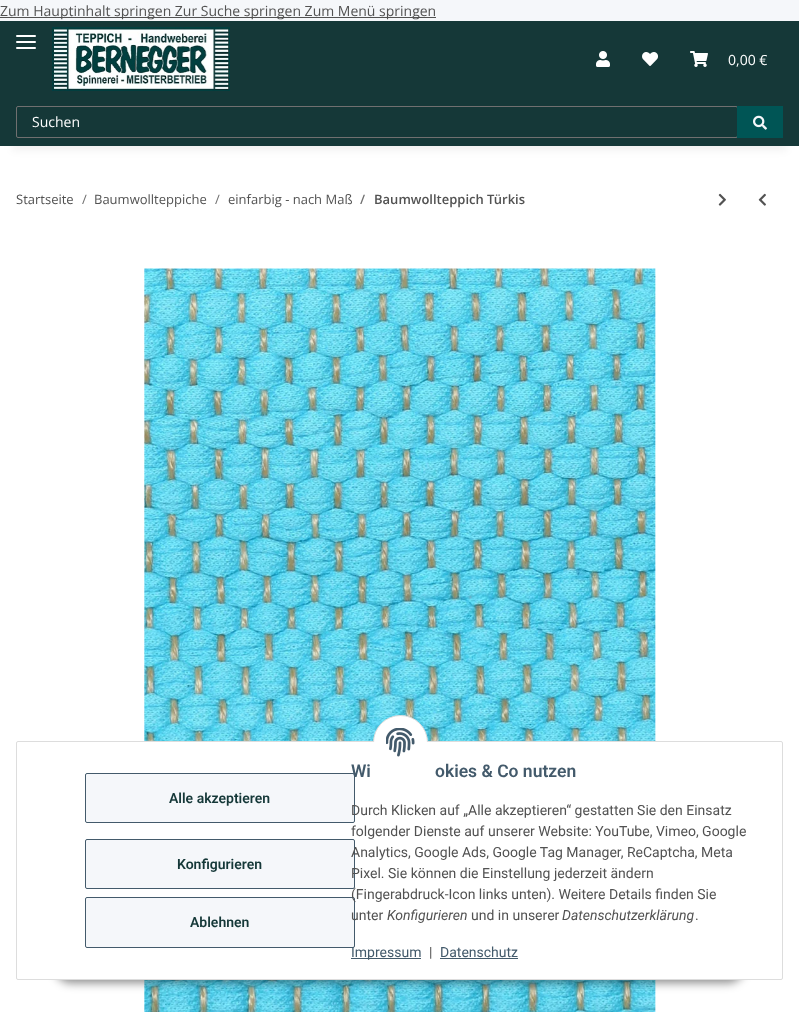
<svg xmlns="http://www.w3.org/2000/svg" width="799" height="1012">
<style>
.a{font:14px Open Sans;fill:#525252}
.b{font:14px Open Sans;fill:#fff}
.c{font:13px Open Sans;fill:#525252}
.d{font:13px Open Sans;fill:#707070}
.e{font:600 13px Open Sans;fill:#707070}
.f{font:600 13px Open Sans;fill:#525252}
.g{font:600 14px Roboto;fill:#153838}
.h{font:600 17.5px Roboto;fill:#435a6b}
.i{font:14px Roboto;fill:#525252}
.j{font:italic 14px Roboto;fill:#525252}
.k{font:14px Roboto;fill:#435a6b}
</style>
<rect width="100%" height="100%" fill="#f5f7fa"/>
<path fill="#525252" d="M0 17h436v1H0z"/>
<path fill="#fff" d="M0 146h799v866H0z"/>
<path fill="#0000000f" filter="blur(4.5px)" d="M12 49h775v101H12z"/>
<path fill="#153838" d="M0 21h799v125H0z"/>
<rect fill="#fff" x="16" y="41" width="20" height="2" rx="1"/>
<rect fill="#fff" x="16" y="35" width="20" height="2" rx="1"/>
<rect fill="#fff" x="16" y="47" width="20" height="2" rx="1"/>
<image href="1.png" x="52" y="27" width="178" height="64"/>
<image href="2.png" x="596" y="51" width="14" height="16"/>
<image href="3.png" x="642" y="52" width="16" height="14"/>
<image href="4.png" x="690" y="51" width="18" height="16"/>
<rect fill="none" stroke="#707070" x="16.5" y="106.5" width="721" height="31" rx="1.5"/>
<path fill="#055" d="M737 106h46v32H737z"/>
<image href="5.png" x="753" y="115" width="14" height="15"/>
<image href="6.png" x="718" y="193" width="8" height="13"/>
<image href="7.png" x="758" y="193" width="8" height="13"/>
<image href="8.png" x="144" y="268" width="512" height="744"/>
<rect fill="#00000073" filter="blur(5px)" x="55" y="951" width="689" height="32" rx="16"/>
<rect fill="#fff" stroke="#ddd" x="16.5" y="741.5" width="766" height="238" rx="1.5"/>
<circle fill="#fff" stroke="#ddd" cx="400.5" cy="742.5" r="27"/>
<path fill="#fff" d="M373 742h55v28H373z"/>
<image href="9.png" x="386" y="728" width="29" height="29"/>
<rect fill="#f5f7fa" stroke="#435a6b" x="85.5" y="773.5" width="269" height="49" rx="1.5"/>
<rect fill="#f5f7fa" stroke="#435a6b" x="85.5" y="839.5" width="269" height="49" rx="1.5"/>
<rect fill="#f5f7fa" stroke="#435a6b" x="85.5" y="897.5" width="269" height="50" rx="1.5"/>
<path fill="#435a6b" d="M351 958h70v1H351z"/>
<path fill="#435a6b" d="M440 958h78v1H440z"/>
<text class="a" x="0" y="16">Zum Hauptinhalt springen Zur Suche springen Zum Menü springen</text>
<text class="b" x="728" y="65">0,00 €</text>
<text class="b" x="32" y="127">Suchen</text>
<text class="c" x="16" y="204">Startseite</text>
<text class="d" x="82" y="204">/</text>
<text class="c" x="94" y="204">Baumwollteppiche</text>
<text class="d" x="215" y="204">/</text>
<text class="c" x="228" y="204">einfarbig - nach Maß</text>
<text class="e" x="360" y="204">/</text>
<text class="f" x="374" y="204">Baumwollteppich Türkis</text>
<text class="g" x="169" y="803">Alle akzeptieren</text>
<text class="g" x="177" y="869">Konfigurieren</text>
<text class="g" x="190" y="927">Ablehnen</text>
<text class="h" x="351" y="777">Wi</text>
<text class="h" x="435" y="777">okies &amp; Co nutzen</text>
<text class="i" x="351" y="815">Durch Klicken auf „Alle akzeptieren“ gestatten Sie den Einsatz</text>
<text class="i" x="351" y="836">folgender Dienste auf unserer Website: YouTube, Vimeo, Google</text>
<text class="i" x="351" y="857">Analytics, Google Ads, Google Tag Manager, ReCaptcha, Meta</text>
<text class="i" x="351" y="878">Pixel. Sie können die Einstellung jederzeit ändern</text>
<text class="i" x="351" y="899">(Fingerabdruck-Icon links unten). Weitere Details finden Sie</text>
<text class="i" x="351" y="920">unter</text>
<text class="j" x="387" y="920">Konfigurieren</text>
<text class="i" x="471" y="920">und in unserer</text>
<text class="j" x="562" y="920">Datenschutzerklärung</text>
<text class="i" x="695" y="920">.</text>
<text class="k" x="351" y="957">Impressum</text>
<text class="i" x="429" y="957">|</text>
<text class="k" x="440" y="957">Datenschutz</text>
</svg>
